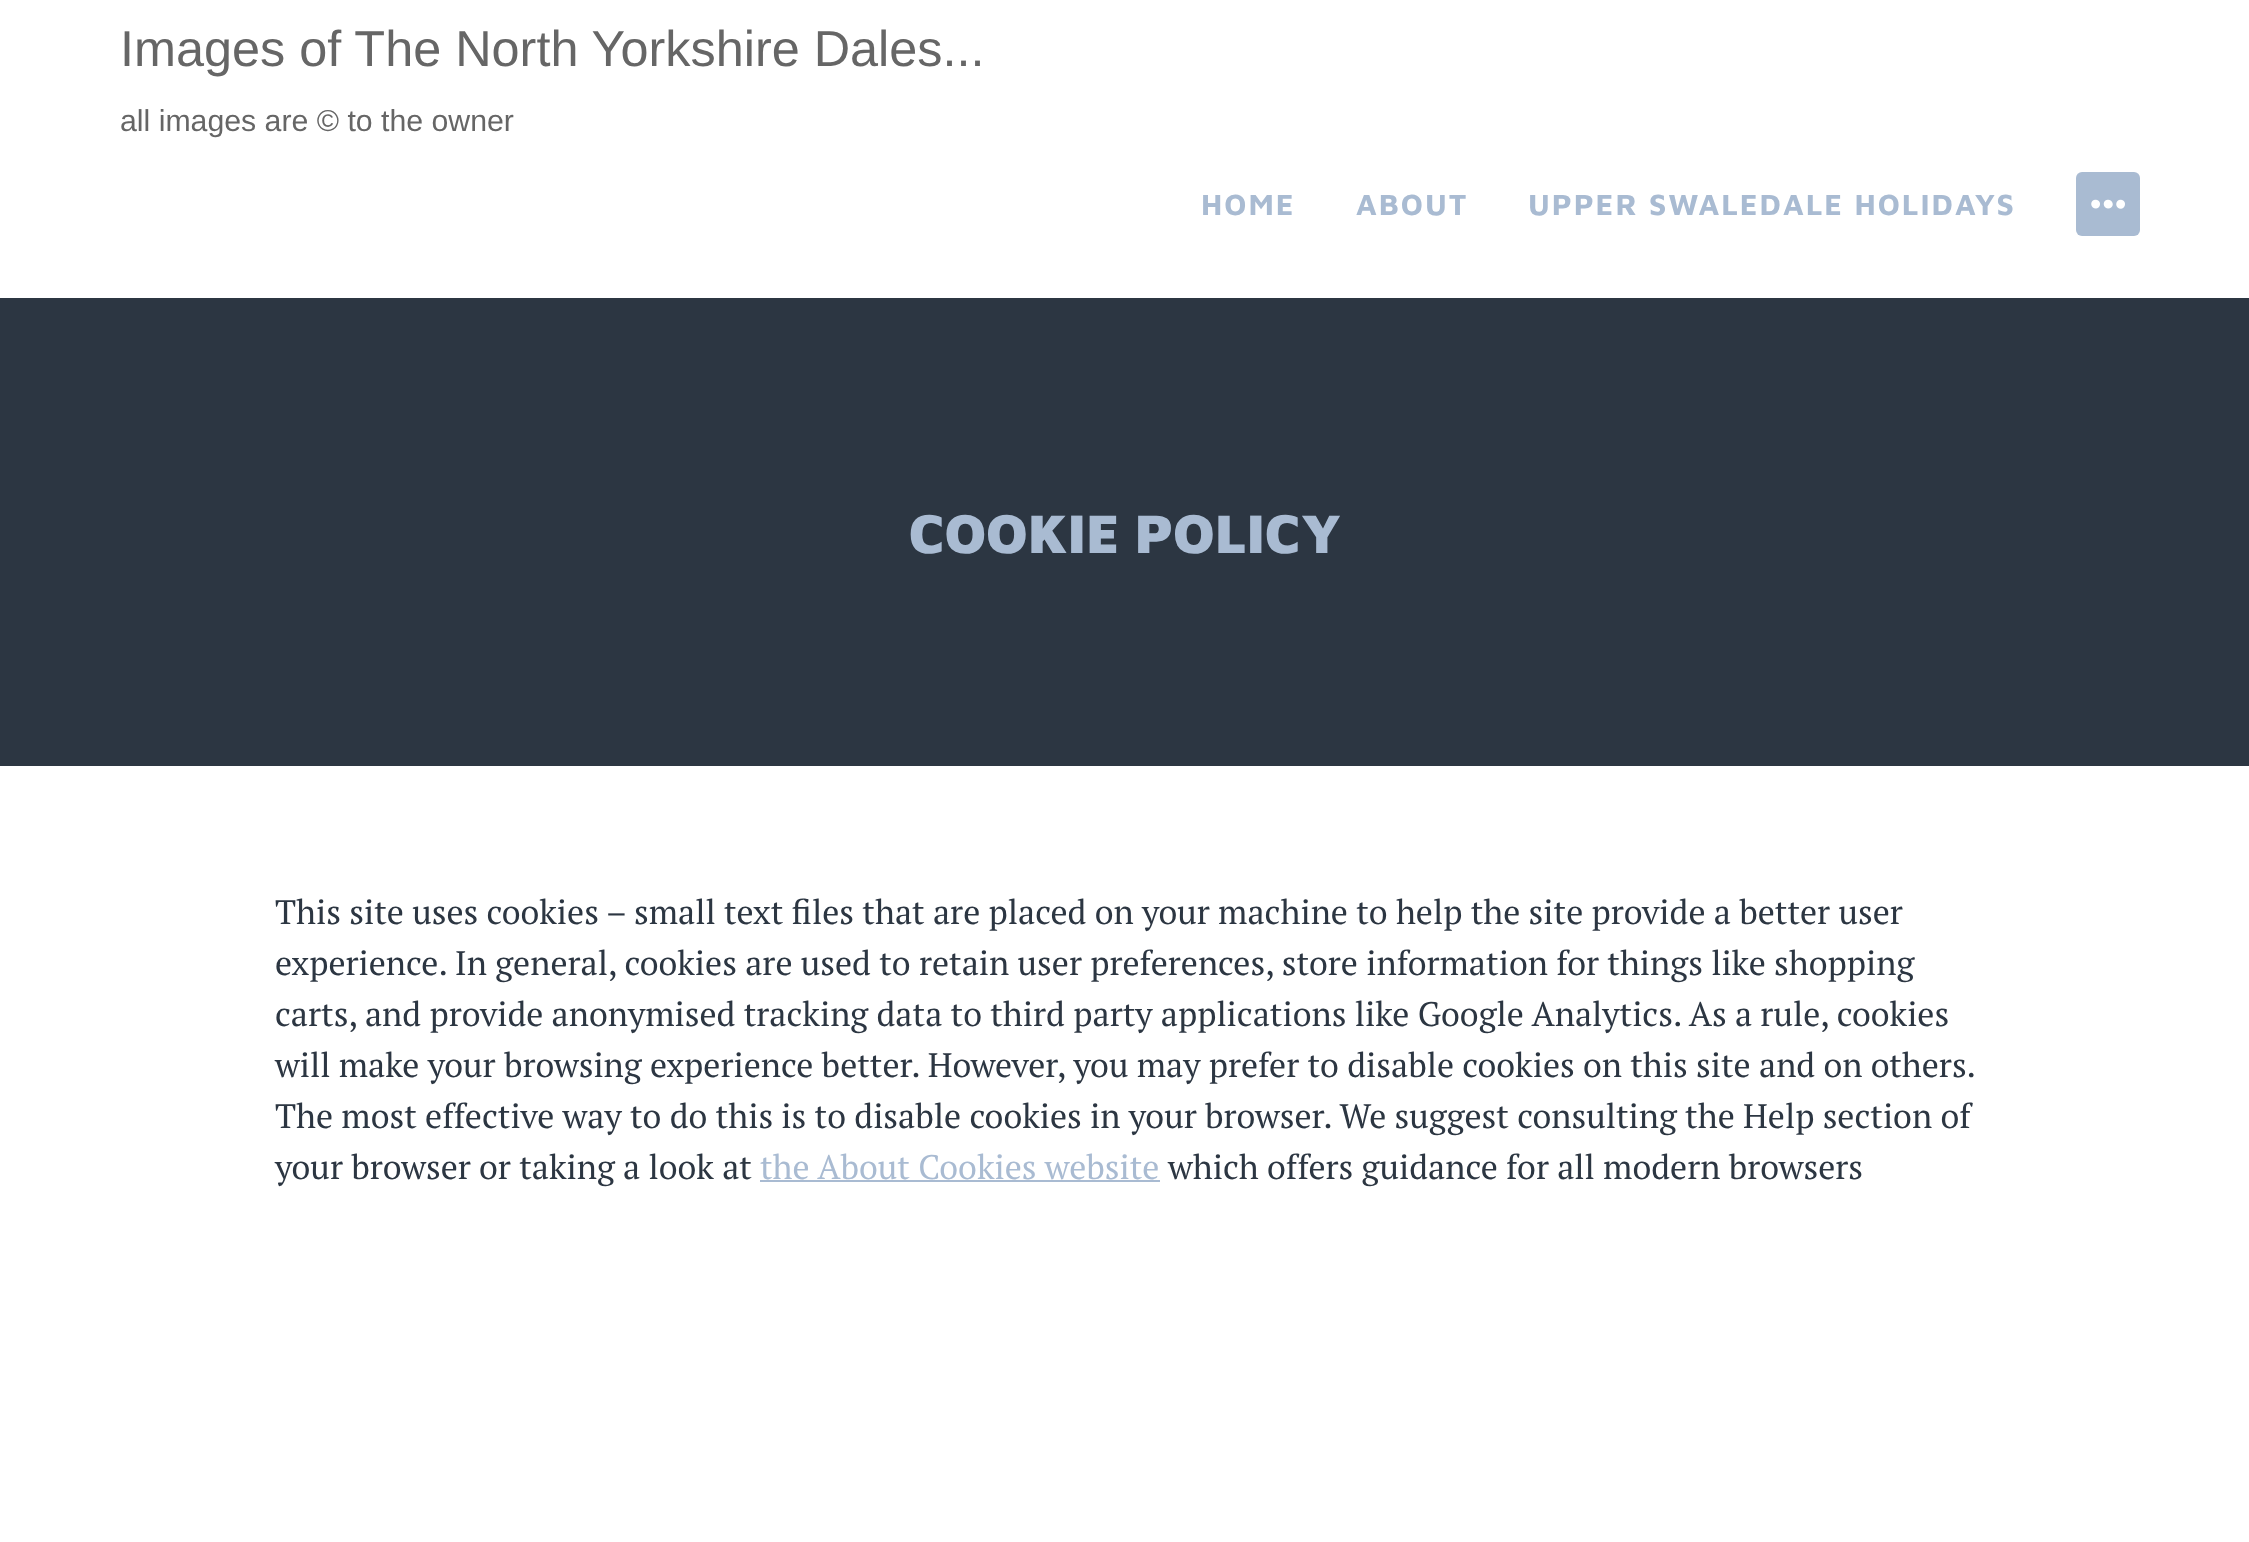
<svg xmlns="http://www.w3.org/2000/svg" width="2249" height="1542">
<style>
.a{font:50.4px Liberation Sans;fill:#666}
.b{font:30.25px Liberation Sans;fill:#666}
.c{font:bold 30px Maven Pro;letter-spacing:2px;fill:#a9bbd2}
.d{font:900 56px Maven Pro;fill:#a9bbd2}
.e{font:34px PT Serif;fill:#2c3642}
.f{font:34px PT Serif;fill:#a9bbd2}
</style>
<rect width="100%" height="100%" fill="#fff"/>
<rect fill="#a9bbd2" x="2076" y="172" width="64" height="64" rx="6"/>
<image href="1.png" x="2091" y="199" width="34" height="10"/>
<path fill="#2c3642" d="M0 298h2249v468H0z"/>
<path fill="#a9bbd2" d="M760 1180h400v2H760z"/>
<text class="a" x="120" y="66">Images of The North Yorkshire Dales...</text>
<text class="b" x="120" y="131">all images are © to the owner</text>
<text class="c" x="1201" y="215">HOME</text>
<text class="c" x="1356" y="215">ABOUT</text>
<text class="c" x="1528" y="215">UPPER SWALEDALE HOLIDAYS</text>
<text class="d" x="909" y="553">COOKIE POLICY</text>
<text class="e" x="275" y="924">This site uses cookies – small text files that are placed on your machine to help the site provide a better user</text>
<text class="e" x="275" y="975">experience. In general, cookies are used to retain user preferences, store information for things like shopping</text>
<text class="e" x="275" y="1026">carts, and provide anonymised tracking data to third party applications like Google Analytics. As a rule, cookies</text>
<text class="e" x="275" y="1077">will make your browsing experience better. However, you may prefer to disable cookies on this site and on others.</text>
<text class="e" x="275" y="1128">The most effective way to do this is to disable cookies in your browser. We suggest consulting the Help section of</text>
<text class="e" x="275" y="1179">your browser or taking a look at</text>
<text class="f" x="760" y="1179">the About Cookies website</text>
<text class="e" x="1168" y="1179">which offers guidance for all modern browsers</text>
</svg>
